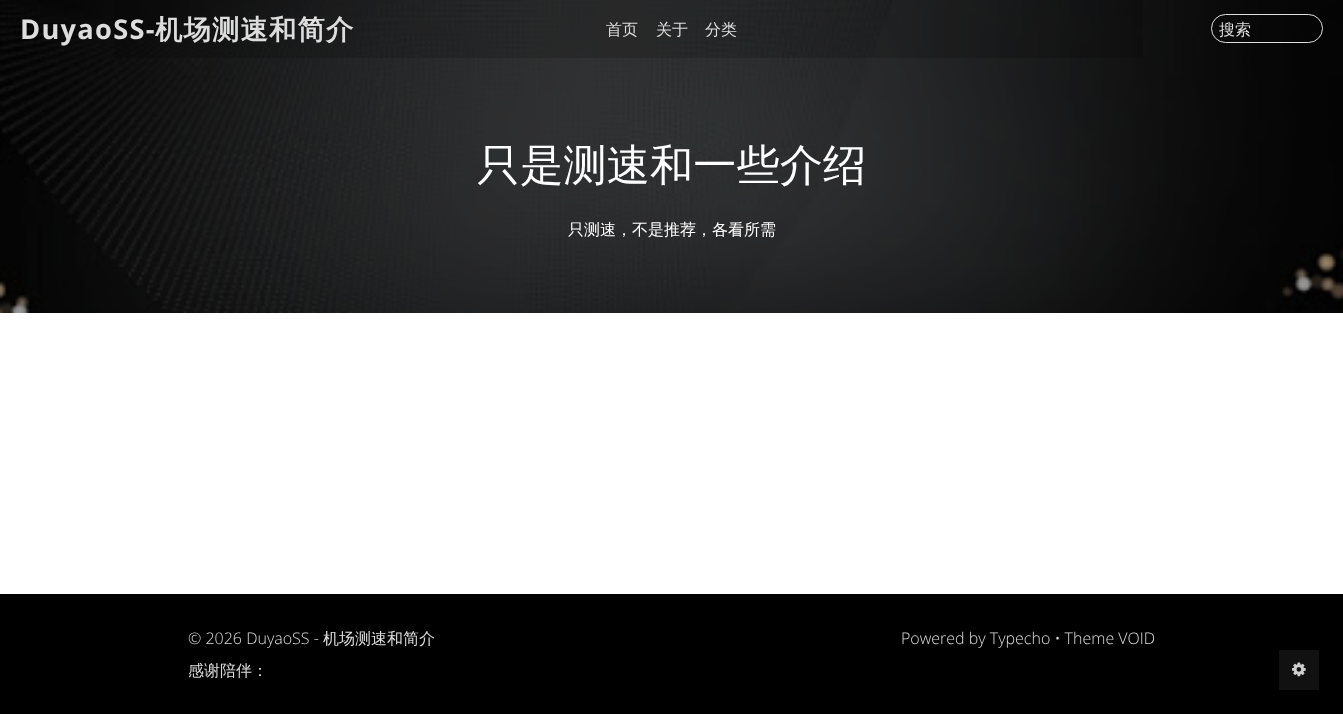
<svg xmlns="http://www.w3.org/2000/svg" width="1343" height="714">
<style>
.a{font:bold 27.25px Open Sans;letter-spacing:1.25px;fill:#ddd}
.b{font:bold 27.25px WenQuanYi Zen Hei;letter-spacing:1.25px;fill:#ddd}
.c{font:500 16px WenQuanYi Zen Hei;fill:#ddd}
.d{font:500 43.25px WenQuanYi Zen Hei;fill:#fff}
.e{font:500 16px WenQuanYi Zen Hei;fill:#fff}
.f{font:300 16px Open Sans;fill:#ddd}
</style>
<rect width="100%" height="100%" fill="#fff"/>
<image href="1.png" x="0" y="0" width="1343" height="313"/>
<path fill="#00000026" d="M114 0h1029v58H114z"/>
<rect fill="none" stroke="#dfdfdf" x="1211.5" y="14.5" width="111" height="28" rx="14"/>
<path fill="#000" d="M0 594h1343v120H0z"/>
<path fill="#111" d="M1279 650h40v40H1279z"/>
<image href="2.png" x="1292" y="662" width="14" height="15"/>
<text class="a" x="20" y="39">DuyaoSS-</text>
<text class="b" x="155" y="39">机场测速和简介</text>
<text class="c" x="606" y="35">首页</text>
<text class="c" x="656" y="35">关于</text>
<text class="c" x="705" y="35">分类</text>
<text class="c" x="1219" y="35">搜索</text>
<text class="d" x="477" y="180">只是测速和一些介绍</text>
<text class="e" x="568" y="235">只测速，不是推荐，各看所需</text>
<text class="f" x="188" y="644">© 2026 DuyaoSS -</text>
<text class="c" x="323" y="644">机场测速和简介</text>
<text class="c" x="188" y="676">感谢陪伴：</text>
<text class="f" x="901" y="644">Powered by Typecho • Theme VOID</text>
</svg>
